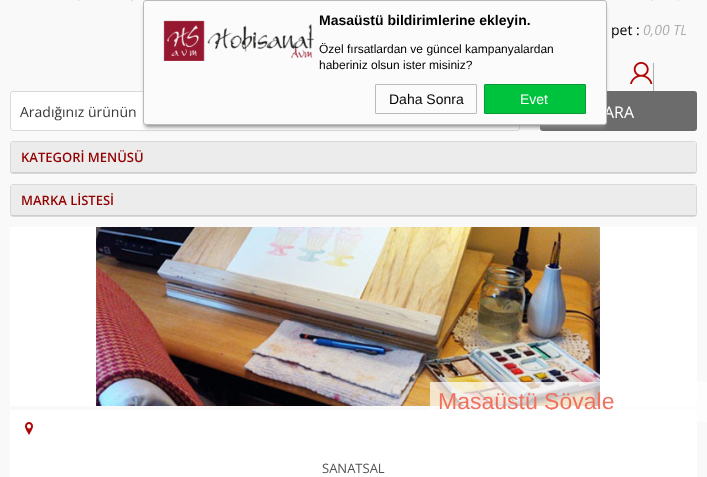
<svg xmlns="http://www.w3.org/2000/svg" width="707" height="477">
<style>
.a{font:14px Open Sans;fill:#000}
.b{font:italic 14px Open Sans;fill:#aeaeae}
.c{font:14px Open Sans;fill:#363636}
.d{font:16px Open Sans;fill:#fff}
.e{font:12px Liberation Sans;fill:#000}
.f{font:bold 14px Liberation Sans;fill:#000}
.g{font:14px Liberation Sans;fill:#fff}
.h{font:14px Liberation Sans;fill:#000}
.i{font:600 13px Open Sans;fill:#930000}
.j{font:23px Liberation Sans;fill:#ef725f}
.k{font:13px Open Sans;fill:#535353}
</style>
<rect width="100%" height="100%" fill="#f9f9f9"/>
<image href="1.png" x="78" y="0" width="2" height="1"/>
<image href="2.png" x="131" y="0" width="2" height="1"/>
<image href="3.png" x="651" y="0" width="2" height="1"/>
<image href="4.png" x="677" y="0" width="2" height="1"/>
<rect fill="#fff" stroke="#d9d9d9" x="10.5" y="91.5" width="509" height="39" rx="2.5"/>
<rect fill="#6c6c6c" x="540" y="91" width="157" height="40" rx="3"/>
<rect fill="#888" filter="blur(2px)" x="145" y="6" width="460" height="121" rx="1"/>
<image href="6.png" x="630" y="62" width="23" height="22"/>
<path fill="#aeaeae" d="M653 63h1v28H653z"/>
<rect fill="none" stroke="#d9d9d9" x="10.5" y="141.5" width="686" height="32" rx="2.5"/>
<path fill="#cdcdcd" d="M11 172h685v1H11z"/>
<path fill="#ececec" d="M11 142h685v30H11z"/>
<rect fill="none" stroke="#d9d9d9" x="10.5" y="184.5" width="686" height="32" rx="2.5"/>
<path fill="#cdcdcd" d="M11 215h685v1H11z"/>
<path fill="#ececec" d="M11 185h685v30H11z"/>
<image href="7.png" x="10" y="227" width="687" height="179"/>
<path fill="#ffffffb3" d="M430 382h277v40H430z"/>
<text class="a" x="611" y="35">pet :</text>
<text class="b" x="643" y="35">0,00 TL</text>
<text class="c" x="20" y="117">Aradığınız ürünün</text>
<text class="d" x="604" y="118">ARA</text>
<rect fill="#fbfbfb" stroke="#bababa" x="143.5" y="0.5" width="463" height="124" rx="2.5"/>
<text class="e" x="319" y="69">haberiniz olsun ister misiniz?</text>
<text class="e" x="319" y="53">Özel fırsatlardan ve güncel kampanyalardan</text>
<text class="f" x="319" y="25">Masaüstü bildirimlerine ekleyin.</text>
<rect fill="#00c33d" stroke="#059833" x="484.5" y="84.5" width="101" height="29" rx="0.5"/>
<text class="g" x="520" y="104">Evet</text>
<rect fill="none" stroke="#bababa" x="375.5" y="84.5" width="101" height="29" rx="0.5"/>
<text class="h" x="389" y="104">Daha Sonra</text>
<image href="5.png" x="163" y="20" width="151" height="41"/>
<text class="i" x="21" y="162">KATEGORİ MENÜSÜ</text>
<text class="i" x="21" y="205">MARKA LİSTESİ</text>
<text class="j" x="438" y="409">Masaüstü Şövale</text>
<path fill="#fff" d="M10 410h687v67H10z"/>
<image href="8.png" x="25" y="422" width="8" height="13"/>
<text class="k" x="322" y="473">SANATSAL</text>
</svg>
